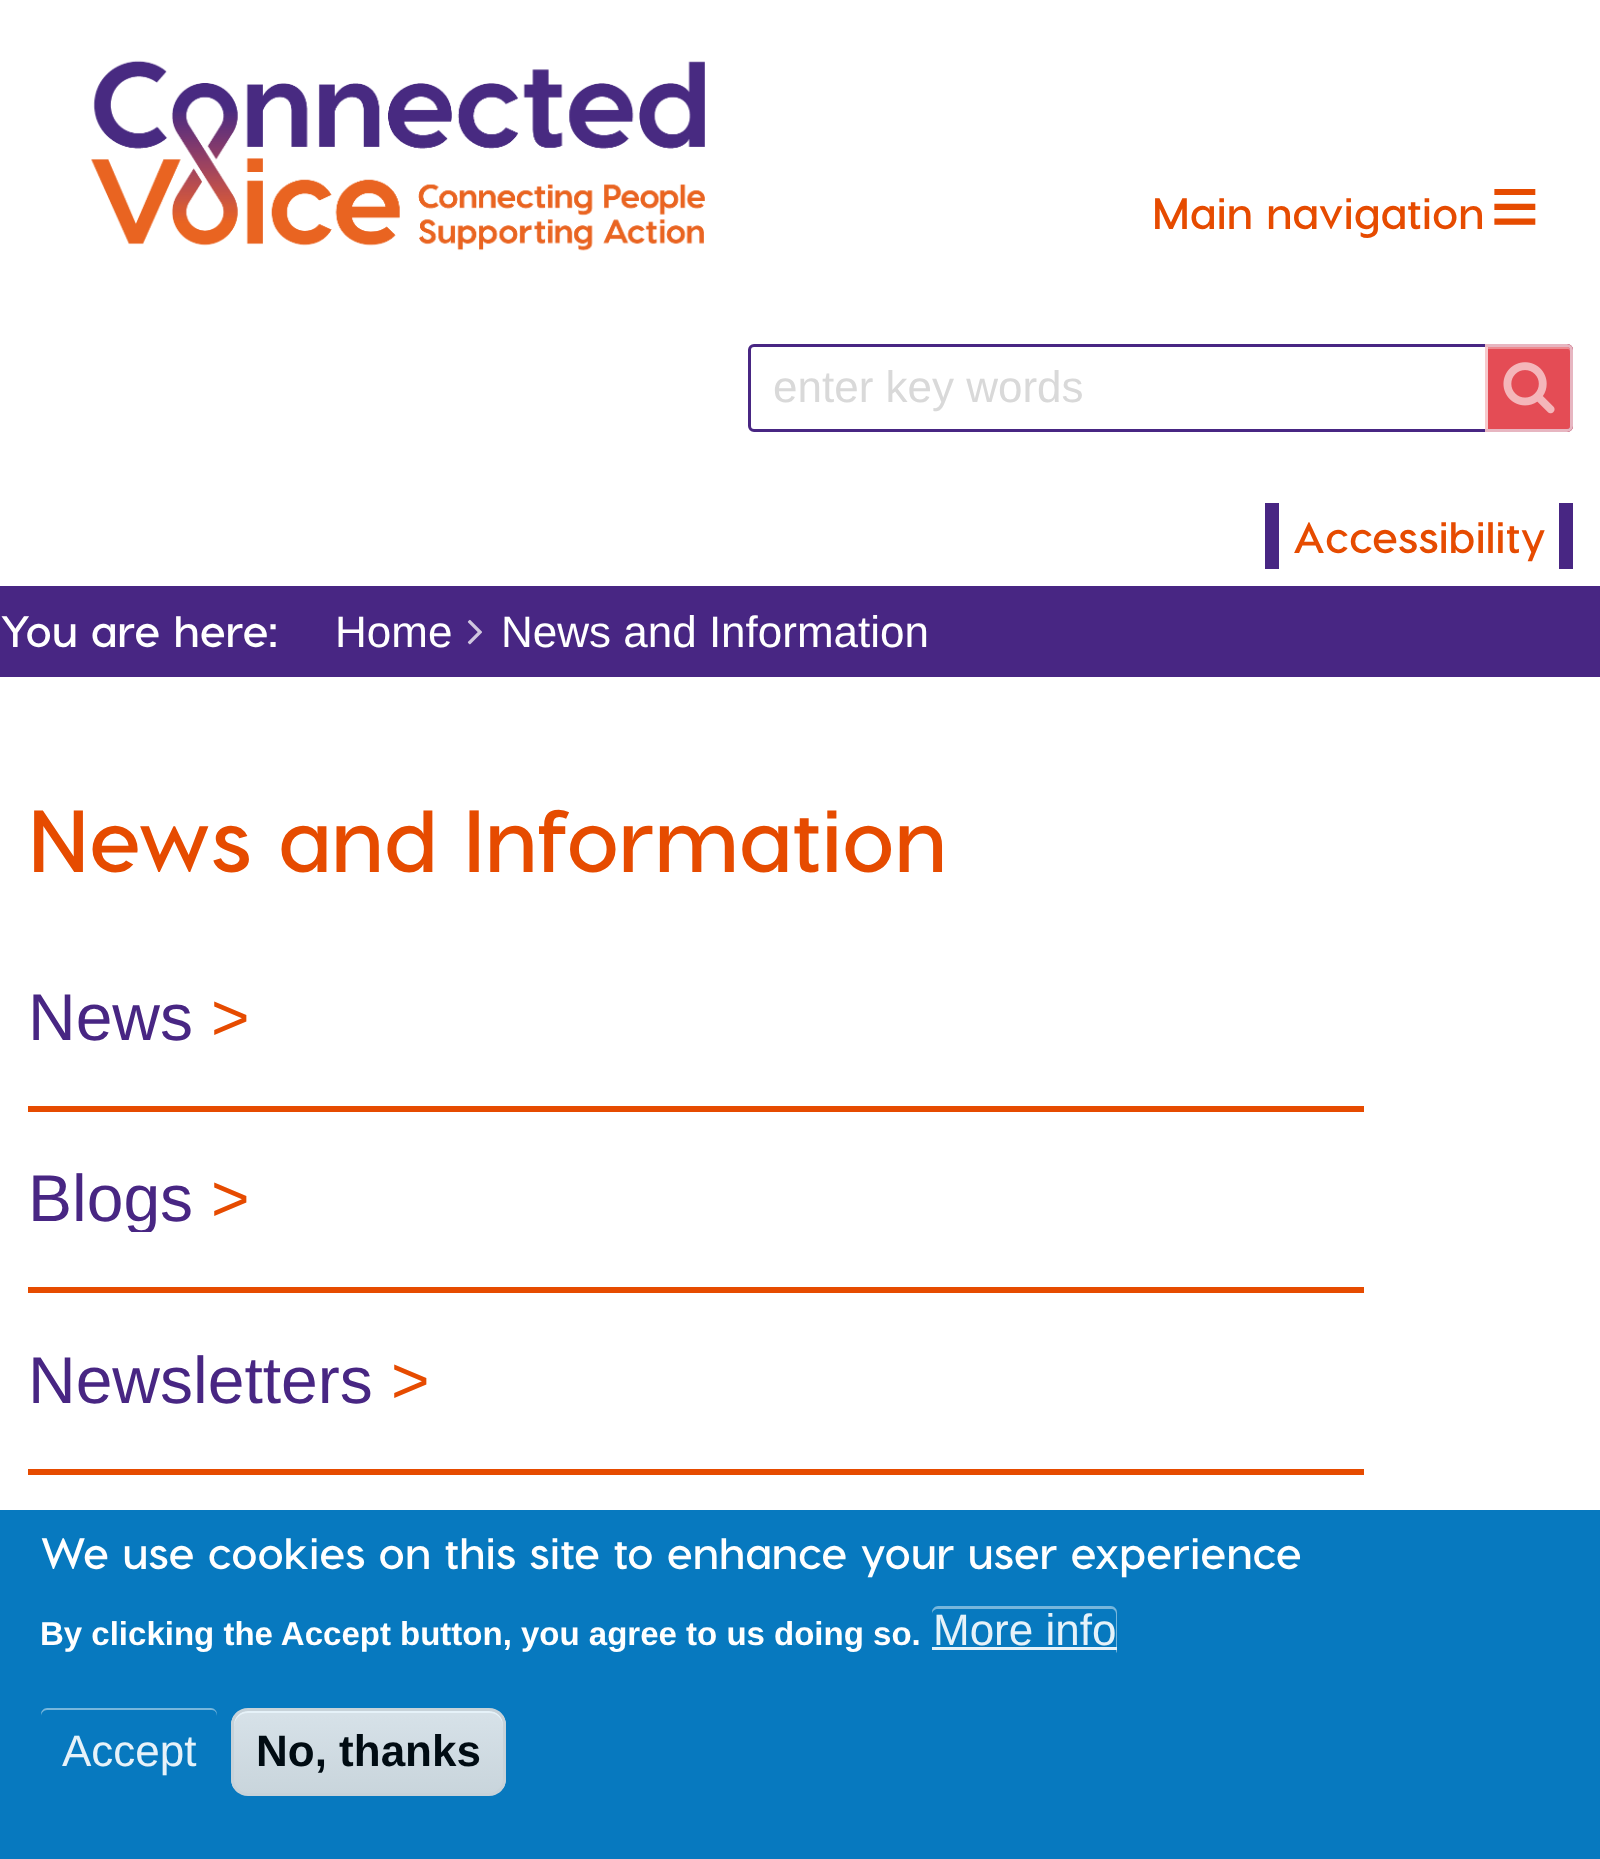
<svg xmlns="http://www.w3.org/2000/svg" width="1600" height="1859">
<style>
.a{font:bold 44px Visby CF;fill:#e64b00}
.b{font:bold 88px Liberation Serif;fill:#e64b00}
.c{font:44px Liberation Sans;fill:#d9d9d9}
.d{font:bold 44px Visby CF;fill:#fff}
.e{font:44px Liberation Sans;fill:#fff}
.f{font:bold 88px Visby CF;fill:#e64b00}
.g{font:66px Liberation Sans;fill:#482683}
.h{font:66px Liberation Sans;fill:#e64b00}
.i{font:bold 33px Liberation Sans;fill:#fff}
.j{font:44px Liberation Sans;fill:#e6f2f9}
.k{font:bold 44px Liberation Sans;fill:#010c13}
</style>
<defs>
<clipPath id="clip1"><path d="M748 503h825v66H748z"/></clipPath>
<clipPath id="clip2"><rect x="231" y="1708" width="275" height="88" rx="17"/></clipPath>
<linearGradient id="g1" gradientUnits="userSpaceOnUse" x1="369" y1="1711" x2="369" y2="1793"><stop offset="0.05" stop-color="#d6e1e8"/><stop offset="1" stop-color="#c9d5dc"/></linearGradient>
<clipPath id="clip3"><path d="M28 1166h1336v66H28z"/></clipPath>
</defs>
<rect width="100%" height="100%" fill="#fff"/>
<image href="1.png" x="91" y="60" width="614" height="191"/>
<rect fill="none" stroke="#482683" stroke-width="3" x="749.5" y="345.5" width="822" height="85" rx="4.5"/>
<path fill="#d9000db3" d="M1485 344h82c3.5 0 6 2.5 6 6v76c0 3.5-2.5 6-6 6h-82z"/>
<image href="2.png" x="1503" y="362" width="52" height="52"/>
<path fill="#ffffff59" d="M1488 349h80c1 0 2 1 2 3v-2c0-2-1-3-3-3h-79z"/>
<path fill="none" stroke="#ffffffb3" stroke-width="3" d="M1486.5 345.5h80.5c2.5 0 4.5 2 4.5 4.5v76c0 2.5-2 4.5-4.5 4.5h-80.5z"/>
<g clip-path="url(#clip1)">
<path fill="none" stroke="#482683" stroke-width="14" d="M1272 488h294v94H1272z"/>
</g>
<path fill="#482683" d="M0 586h1600v91H0z"/>
<image href="3.png" x="467" y="619" width="15" height="26"/>
<path fill="#e64b00" d="M28 1106h1336v6H28z"/>
<path fill="#e64b00" d="M28 1287h1336v6H28z"/>
<path fill="#e64b00" d="M28 1469h1336v6H28z"/>
<path fill="#0779bf" d="M0 1510h1600v349H0z"/>
<path fill="#77b6dc" d="M938 1609h173c3 0 5 2 5 5v39c1-1 1-2 1-3v-38c0-3-3-6-6-6h-173c-3 0-6 3-6 6v2c0-3 3-5 6-5z"/>
<path fill="#e6f2f9" d="M932 1647h185v3H932z"/>
<path fill="#77b6dc" d="M47 1710h165c3 0 5 3 5 6v-2c0-3-3-6-6-6h-164c-3 0-6 3-6 6v2c0-3 3-6 6-6z"/>
<g clip-path="url(#clip2)">
<path fill="url(#g1)" d="M231 1711h275v82H231z"/>
</g>
<path fill="#e6f2f9" d="M248 1713h242c7 0 13 6 13 14v-2c0-8-6-14-14-14h-241c-8 0-14 6-14 14v2c0-8 6-14 14-14z"/>
<rect fill="none" stroke="#c7d2d9" stroke-width="3" x="232.5" y="1709.5" width="272" height="85" rx="15.5"/>
<text class="a" x="1152" y="229">Main navigation</text>
<text class="b" x="1490" y="236">≡</text>
<text class="c" x="773" y="402">enter key words</text>
<text class="a" x="1293" y="553">Accessibility</text>
<text class="d" x="0" y="647">You are here:</text>
<text class="e" x="335" y="647">Home</text>
<text class="e" x="501" y="647">News and Information</text>
<text class="f" x="28" y="872">News and Information</text>
<text class="g" x="28" y="1040">News</text>
<text class="h" x="211" y="1040">&gt;</text>
<g clip-path="url(#clip3)">
<text class="g" x="28" y="1221">Blogs</text>
</g>
<text class="h" x="211" y="1221">&gt;</text>
<text class="g" x="28" y="1403">Newsletters</text>
<text class="h" x="391" y="1403">&gt;</text>
<text class="d" x="40" y="1569">We use cookies on this site to enhance your user experience</text>
<text class="i" x="40" y="1645">By clicking the Accept button, you agree to us doing so.</text>
<text class="j" x="933" y="1645">More info</text>
<text class="j" x="62" y="1766">Accept</text>
<text class="k" x="256" y="1766">No, thanks</text>
</svg>
